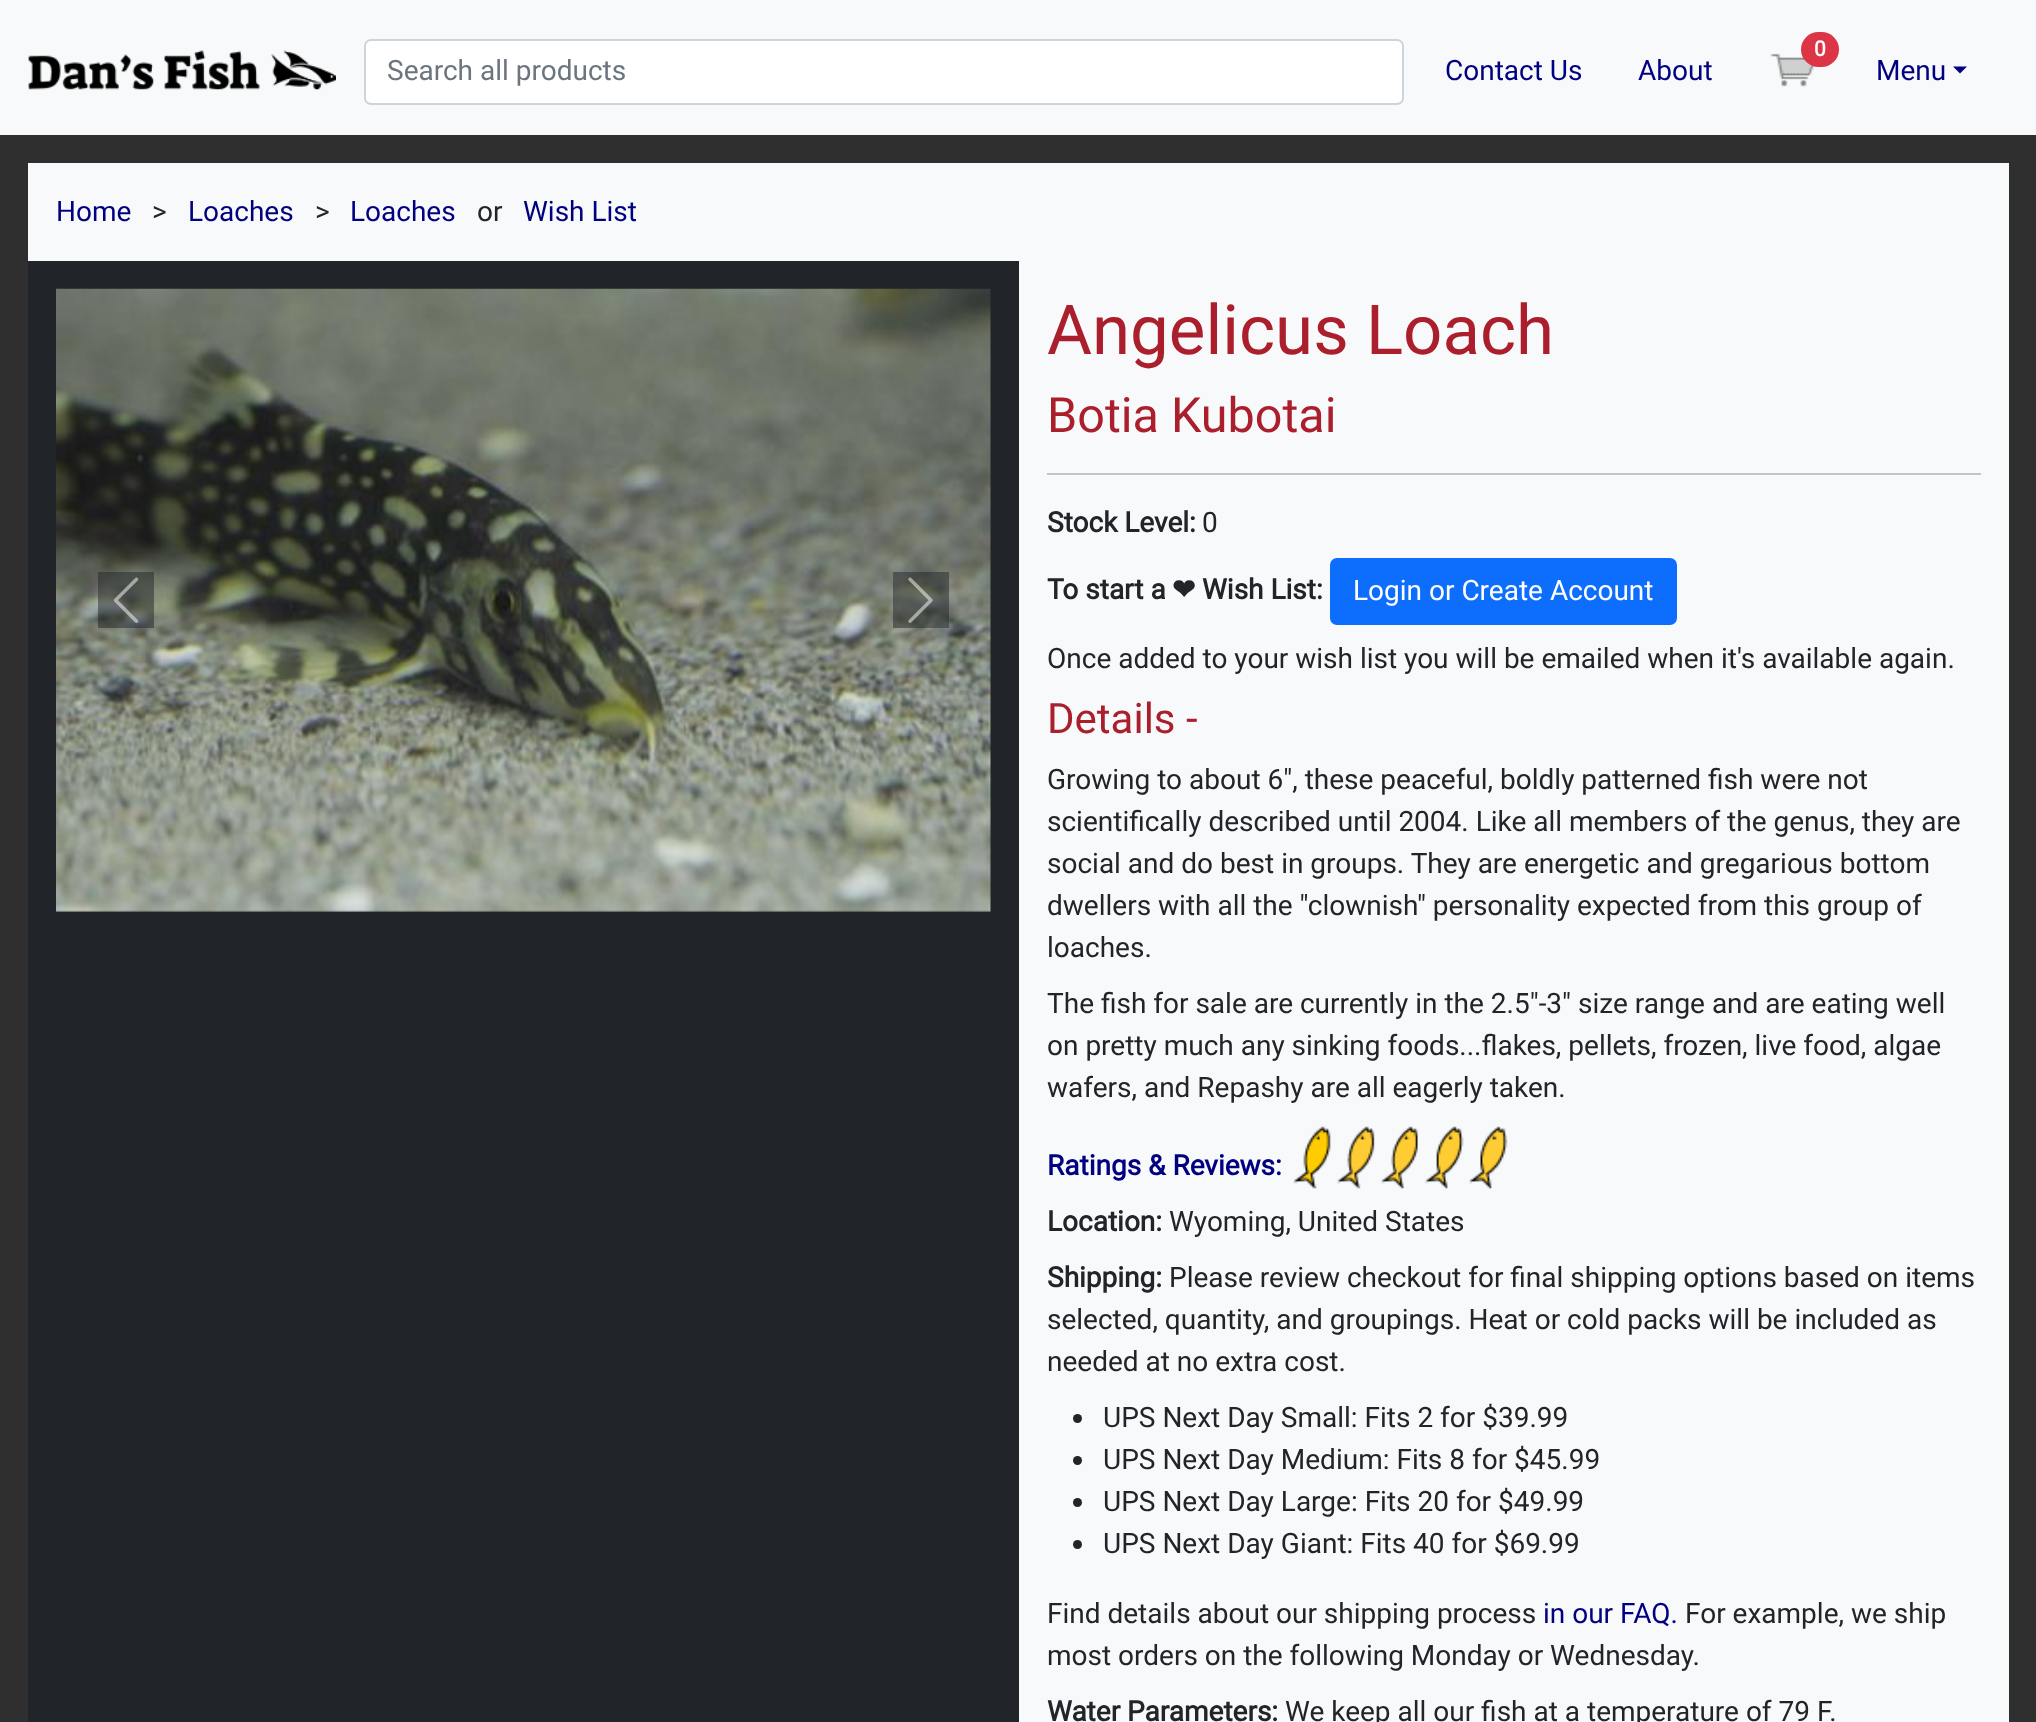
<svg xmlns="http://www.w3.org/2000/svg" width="2036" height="1722">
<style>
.a{font:28px Roboto;fill:#6c757d}
.b{font:bold 21px Roboto;fill:#fff}
.c{font:28px Roboto;fill:#000080}
.d{font:28px Roboto;fill:#212529}
.e{font:69px Roboto;fill:#ab1f2d}
.f{font:48.5px Roboto;fill:#ab1f2d}
.g{font:bold 28px Roboto;fill:#212529}
.h{font:bold 28px DejaVu Sans;fill:#212529}
.i{font:28px Roboto;fill:#fff}
.j{font:42px Roboto;fill:#ab1f2d}
.k{font:bold 28px Roboto;fill:#000080}
</style>
<rect width="100%" height="100%" fill="#2f2f2f"/>
<path fill="#f8f9fa" d="M0 0h2036v135H0z"/>
<image href="1.png" x="28" y="50" width="308" height="40"/>
<rect fill="#fff" stroke="#ced4da" stroke-width="2" x="365" y="40" width="1038" height="64" rx="6"/>
<image href="2.png" x="1770" y="53" width="45" height="34"/>
<rect fill="#dc3545" x="1801" y="32" width="38" height="35" rx="17.5"/>
<path fill="#000080" d="M1953 66.5h14l-7 7z"/>
<path fill="#f8f9fa" d="M28 163h1981v1559H28z"/>
<path fill="#212529" d="M28 261h991v1461H28z"/>
<image href="3.png" x="56" y="288" width="935" height="624"/>
<path fill="#21252980" d="M98 572h56v56H98z"/>
<image href="4.png" x="113" y="577" width="26" height="46"/>
<path fill="#21252980" d="M893 572h56v56H893z"/>
<image href="5.png" x="908" y="577" width="25" height="46"/>
<path fill="#c2c4c6" d="M1047 473h934v2H1047z"/>
<rect fill="#0d6efd" stroke="#0d6efd" stroke-width="2" x="1331" y="559" width="345" height="65" rx="6"/>
<image href="6.png" x="1293" y="1126" width="215" height="63"/>
<circle fill="#212529" cx="1077.5" cy="1418.5" r="4.5"/>
<circle fill="#212529" cx="1077.5" cy="1460.5" r="4.5"/>
<circle fill="#212529" cx="1077.5" cy="1502.5" r="4.5"/>
<circle fill="#212529" cx="1077.5" cy="1544.5" r="4.5"/>
<text class="a" x="387" y="80">Search all products</text>
<text class="b" x="1814" y="56">0</text>
<text class="c" x="1445" y="80">Contact Us</text>
<text class="c" x="1638" y="80">About</text>
<text class="c" x="1876" y="80">Menu</text>
<text class="c" x="56" y="221">Home</text>
<text class="d" x="152" y="221">&gt;</text>
<text class="c" x="188" y="221">Loaches</text>
<text class="d" x="315" y="221">&gt;</text>
<text class="c" x="350" y="221">Loaches</text>
<text class="d" x="477" y="221">or</text>
<text class="c" x="523" y="221">Wish List</text>
<text class="e" x="1047" y="354">Angelicus Loach</text>
<text class="f" x="1047" y="432">Botia Kubotai</text>
<text class="g" x="1047" y="532">Stock Level:</text>
<text class="d" x="1202" y="532">0</text>
<text class="g" x="1047" y="599">To start a</text>
<text class="h" x="1172" y="599">❤</text>
<text class="g" x="1202" y="599">Wish List:</text>
<text class="i" x="1353" y="600">Login or Create Account</text>
<text class="d" x="1047" y="668">Once added to your wish list you will be emailed when it's available again.</text>
<text class="j" x="1047" y="733">Details -</text>
<text class="d" x="1047" y="789">Growing to about 6", these peaceful, boldly patterned fish were not</text>
<text class="d" x="1047" y="831">scientifically described until 2004. Like all members of the genus, they are</text>
<text class="d" x="1047" y="873">social and do best in groups. They are energetic and gregarious bottom</text>
<text class="d" x="1047" y="915">dwellers with all the "clownish" personality expected from this group of</text>
<text class="d" x="1047" y="957">loaches.</text>
<text class="d" x="1047" y="1013">The fish for sale are currently in the 2.5"-3" size range and are eating well</text>
<text class="d" x="1047" y="1055">on pretty much any sinking foods...flakes, pellets, frozen, live food, algae</text>
<text class="d" x="1047" y="1097">wafers, and Repashy are all eagerly taken.</text>
<text class="k" x="1047" y="1175">Ratings &amp; Reviews:</text>
<text class="g" x="1047" y="1231">Location:</text>
<text class="d" x="1169" y="1231">Wyoming, United States</text>
<text class="g" x="1047" y="1287">Shipping:</text>
<text class="d" x="1169" y="1287">Please review checkout for final shipping options based on items</text>
<text class="d" x="1047" y="1329">selected, quantity, and groupings. Heat or cold packs will be included as</text>
<text class="d" x="1047" y="1371">needed at no extra cost.</text>
<text class="d" x="1103" y="1427">UPS Next Day Small: Fits 2 for $39.99</text>
<text class="d" x="1103" y="1469">UPS Next Day Medium: Fits 8 for $45.99</text>
<text class="d" x="1103" y="1511">UPS Next Day Large: Fits 20 for $49.99</text>
<text class="d" x="1103" y="1553">UPS Next Day Giant: Fits 40 for $69.99</text>
<text class="d" x="1047" y="1623">Find details about our shipping process</text>
<text class="c" x="1543" y="1623">in our FAQ.</text>
<text class="d" x="1685" y="1623">For example, we ship</text>
<text class="d" x="1047" y="1665">most orders on the following Monday or Wednesday.</text>
<text class="g" x="1047" y="1721">Water Parameters:</text>
<text class="d" x="1285" y="1721">We keep all our fish at a temperature of 79 F.</text>
</svg>
